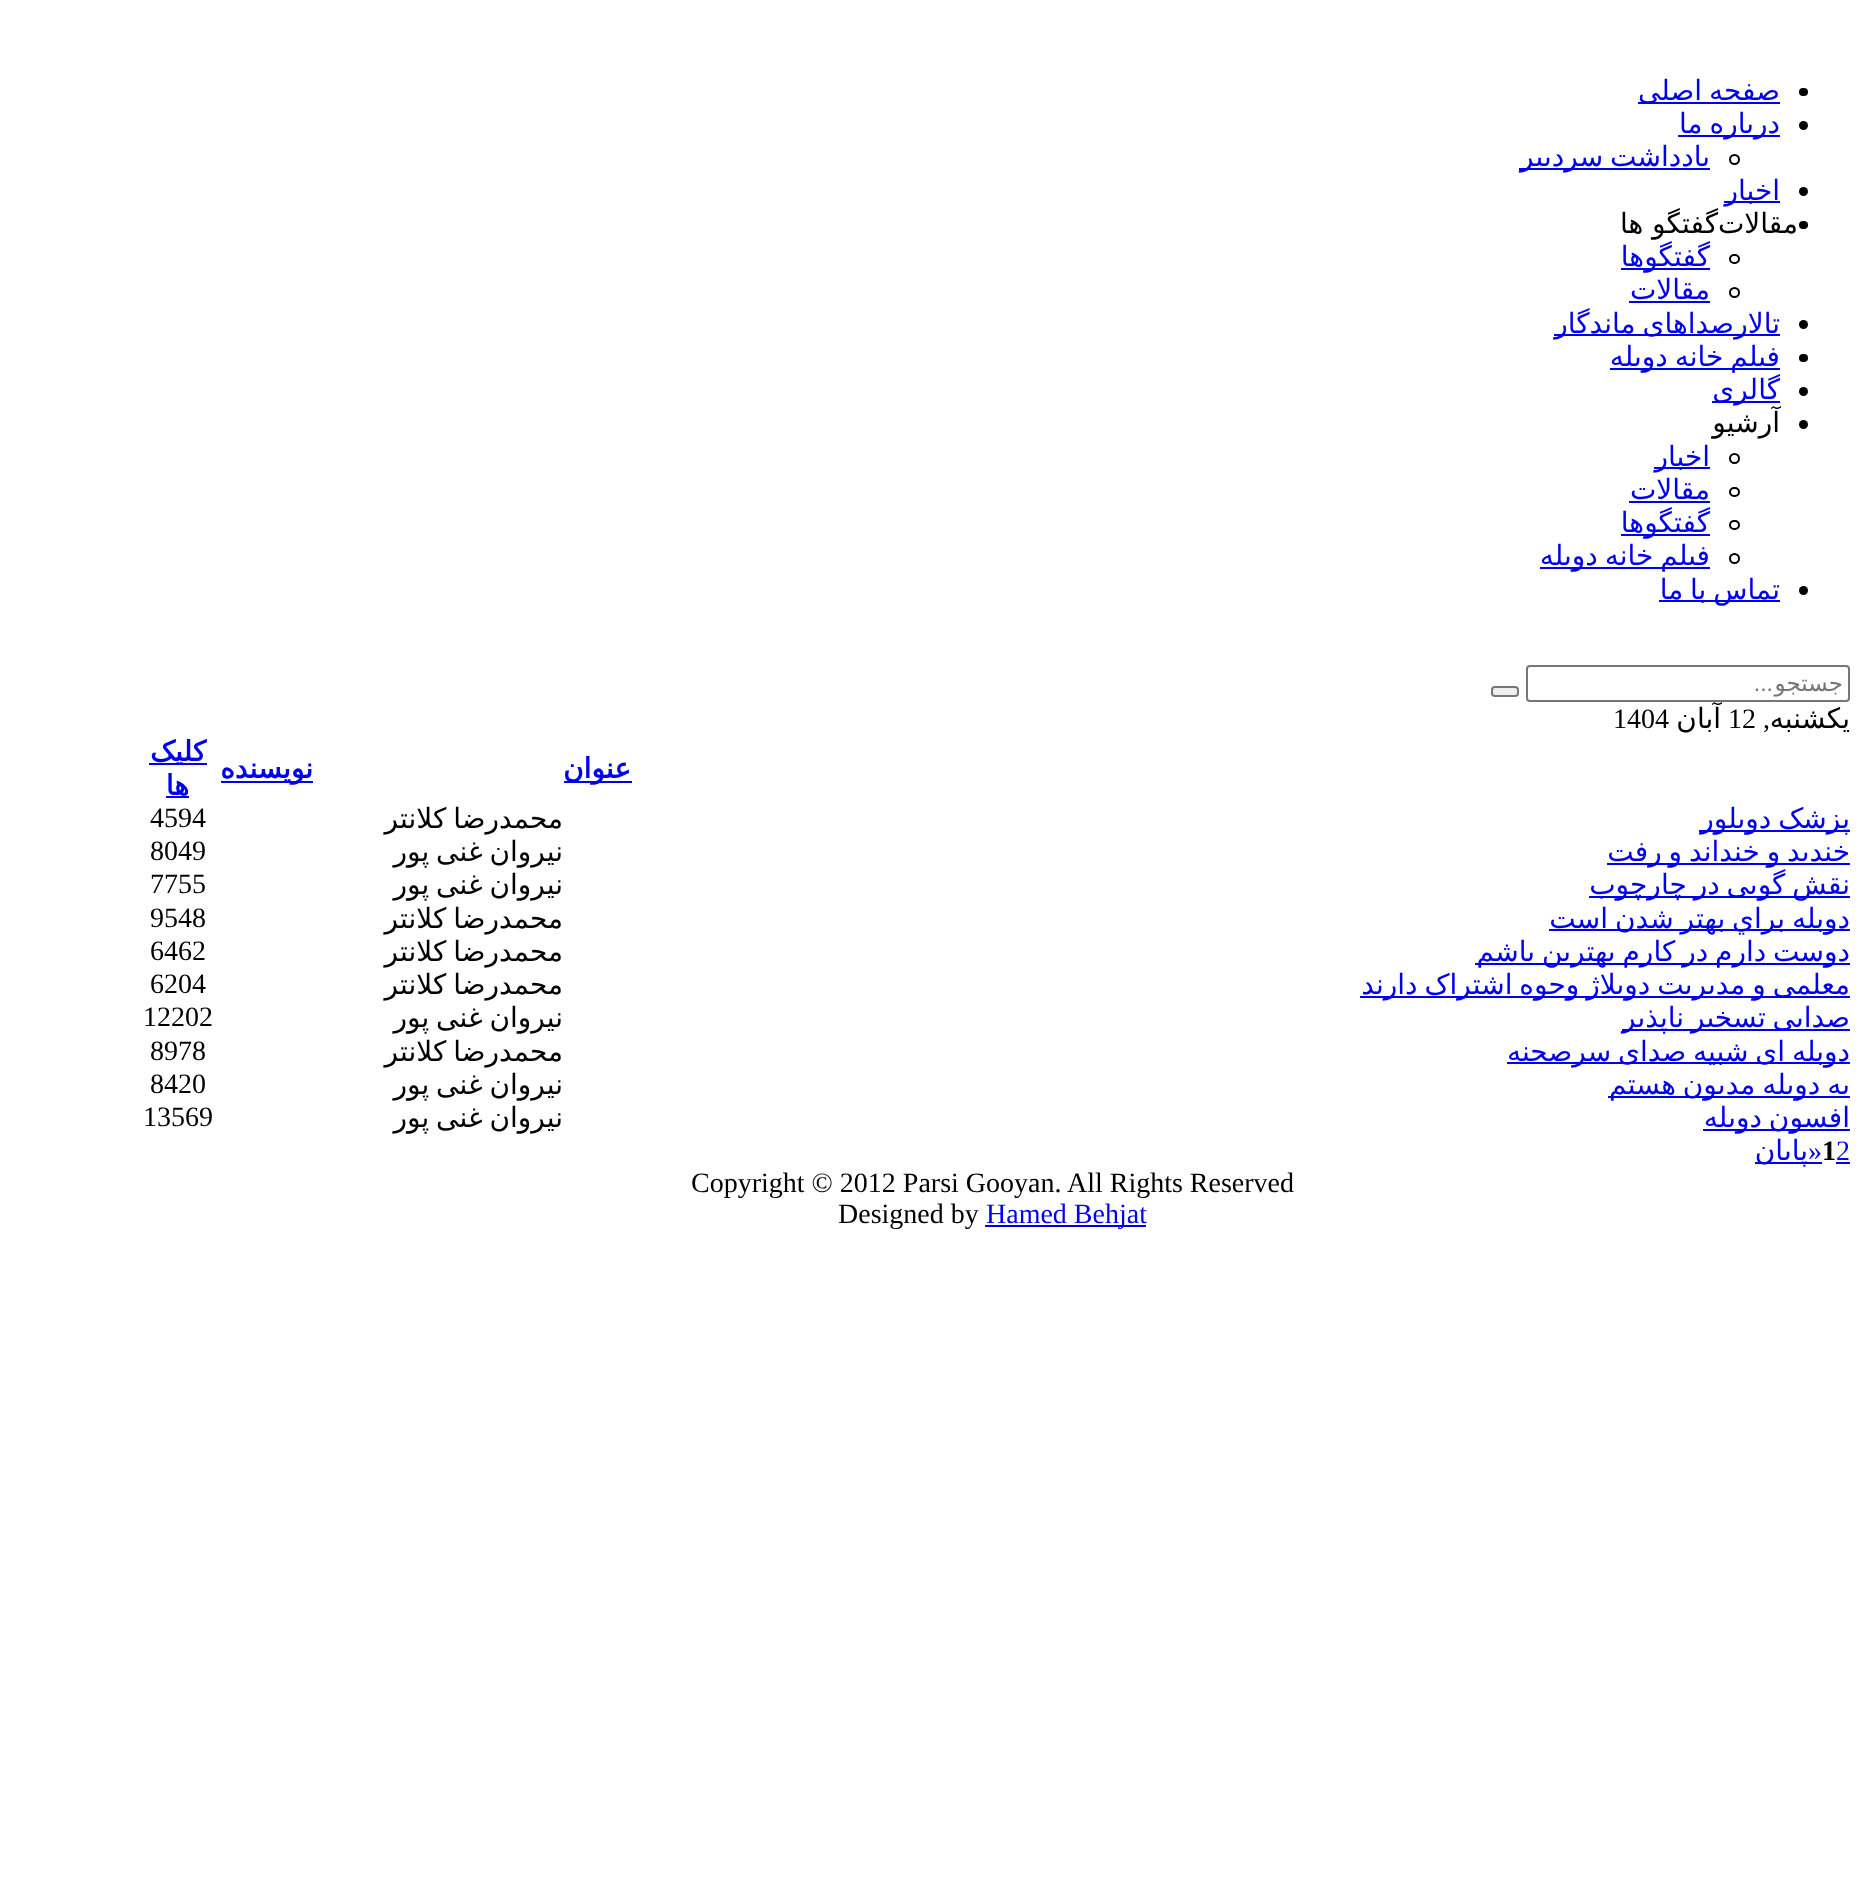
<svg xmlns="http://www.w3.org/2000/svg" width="1863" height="1886">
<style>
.a{font:28px DejaVu Sans;direction:rtl;fill:#00e}
.b{font:28px DejaVu Sans;direction:rtl;fill:#000}
.c{font:23px DejaVu Sans;direction:rtl;fill:#757575}
.d{font:23px Liberation Sans;direction:rtl;fill:#757575}
.e{font:28px Liberation Serif;fill:#000}
.f{font:28px Liberation Serif;direction:rtl;fill:#000}
.g{font:bold 28px DejaVu Sans;direction:rtl;fill:#00e}
.h{font:28px Liberation Serif;fill:#00e}
.i{font:bold 28px Liberation Serif;fill:#000}
</style>
<rect width="100%" height="100%" fill="#fff"/>
<rect fill="#000" x="1799" y="88" width="9" height="8" rx="4"/>
<path fill="#00e" d="M1638 102h142v2H1638z"/>
<circle fill="#000" cx="1803.5" cy="125.5" r="4.5"/>
<path fill="#00e" d="M1678 135h102v2H1678z"/>
<circle fill="none" stroke="#000" stroke-width="2" cx="1734.5" cy="159.5" r="4.5"/>
<path fill="#00e" d="M1519 168h191v2H1519z"/>
<circle fill="#000" cx="1803.5" cy="191.5" r="4.5"/>
<path fill="#00e" d="M1724 201h56v2H1724z"/>
<rect fill="#000" x="1799" y="221" width="9" height="8" rx="4"/>
<rect fill="none" stroke="#000" stroke-width="2" x="1730" y="255" width="9" height="8" rx="4"/>
<path fill="#00e" d="M1621 268h89v2H1621z"/>
<circle fill="none" stroke="#000" stroke-width="2" cx="1734.5" cy="292.5" r="4.5"/>
<path fill="#00e" d="M1629 301h81v2H1629z"/>
<circle fill="#000" cx="1803.5" cy="324.5" r="4.5"/>
<path fill="#00e" d="M1734 334h46v2H1734z"/>
<path fill="#00e" d="M1554 334h180v2H1554z"/>
<rect fill="#000" x="1799" y="354" width="9" height="8" rx="4"/>
<path fill="#00e" d="M1610 368h170v2H1610z"/>
<circle fill="#000" cx="1803.5" cy="391.5" r="4.5"/>
<path fill="#00e" d="M1712 401h68v2H1712z"/>
<circle fill="#000" cx="1803.5" cy="424.5" r="4.5"/>
<circle fill="none" stroke="#000" stroke-width="2" cx="1734.5" cy="458.5" r="4.5"/>
<path fill="#00e" d="M1654 467h56v2H1654z"/>
<rect fill="none" stroke="#000" stroke-width="2" x="1730" y="488" width="9" height="8" rx="4"/>
<path fill="#00e" d="M1629 501h81v2H1629z"/>
<rect fill="none" stroke="#000" stroke-width="2" x="1730" y="521" width="9" height="8" rx="4"/>
<path fill="#00e" d="M1621 534h89v2H1621z"/>
<circle fill="none" stroke="#000" stroke-width="2" cx="1734.5" cy="558.5" r="4.5"/>
<path fill="#00e" d="M1540 567h170v2H1540z"/>
<circle fill="#000" cx="1803.5" cy="590.5" r="4.5"/>
<path fill="#00e" d="M1659 600h121v2H1659z"/>
<rect fill="none" stroke="#767676" stroke-width="2" x="1527" y="666" width="322" height="35" rx="3"/>
<rect fill="#efefef" stroke="#767676" stroke-width="2" x="1492" y="687" width="26" height="9" rx="3"/>
<path fill="#00e" d="M564 781h68v2H564z"/>
<path fill="#00e" d="M221 781h92v2H221z"/>
<path fill="#00e" d="M149 763h58v2H149z"/>
<path fill="#00e" d="M166 796h23v2H166z"/>
<path fill="#00e" d="M1699 830h151v2H1699z"/>
<path fill="#00e" d="M1607 863h243v2H1607z"/>
<path fill="#00e" d="M1589 896h261v2H1589z"/>
<path fill="#00e" d="M1549 929h301v2H1549z"/>
<path fill="#00e" d="M1475 963h375v2H1475z"/>
<path fill="#00e" d="M1360 996h490v2H1360z"/>
<path fill="#00e" d="M1622 1029h228v2H1622z"/>
<path fill="#00e" d="M1507 1062h343v2H1507z"/>
<path fill="#00e" d="M1608 1096h242v2H1608z"/>
<path fill="#00e" d="M1703 1129h147v2H1703z"/>
<path fill="#00e" d="M1836 1162h14v2H1836z"/>
<path fill="#00e" d="M1755 1162h67v2H1755z"/>
<path fill="#00e" d="M985 1225h161v2H985z"/>
<text class="a" x="1780" y="100" word-spacing="-2">صفحه اصلی</text>
<text class="a" x="1780" y="133" word-spacing="-2">درباره ما</text>
<text class="a" x="1710" y="166" word-spacing="-2">یادداشت سردبیر</text>
<text class="a" x="1780" y="200">اخبار</text>
<text class="b" x="1798" y="233">مقالات</text>
<text class="b" x="1718" y="233">گفتگو ها</text>
<text class="a" x="1710" y="266">گفتگوها</text>
<text class="a" x="1710" y="299">مقالات</text>
<text class="a" x="1780" y="333">تالار</text>
<text class="a" x="1734" y="333" word-spacing="-2">صداهای ماندگار</text>
<text class="a" x="1780" y="366" word-spacing="-2">فیلم خانه دوبله</text>
<text class="a" x="1780" y="399">گالری</text>
<text class="b" x="1780" y="432">آرشیو</text>
<text class="a" x="1710" y="466">اخبار</text>
<text class="a" x="1710" y="499">مقالات</text>
<text class="a" x="1710" y="532">گفتگوها</text>
<text class="a" x="1710" y="565" word-spacing="-2">فیلم خانه دوبله</text>
<text class="a" x="1780" y="599" word-spacing="-2">تماس با ما</text>
<text class="c" x="1843" y="691">جستجو</text>
<text class="d" x="1773" y="691">...</text>
<text class="b" x="1850" y="728">یکشنبه</text>
<text class="e" x="1728" y="728">12</text>
<text class="b" x="1721" y="728">آبان</text>
<text class="e" x="1613" y="728">1404</text>
<text class="f" x="1770" y="728">,</text>
<text class="g" x="631" y="778">عنوان</text>
<text class="g" x="313" y="778">نویسنده</text>
<text class="g" x="206" y="761">کلیک</text>
<text class="g" x="189" y="795">ها</text>
<text class="a" x="1850" y="828" word-spacing="-2">پزشک دوبلور</text>
<text class="b" x="563" y="828" word-spacing="-2">محمدرضا کلانتر</text>
<text class="e" x="150" y="827">4594</text>
<text class="a" x="1850" y="861" word-spacing="-2">خندید و خنداند و رفت</text>
<text class="b" x="563" y="861" word-spacing="-2">نیروان غنی پور</text>
<text class="e" x="150" y="860">8049</text>
<text class="a" x="1850" y="894" word-spacing="-2">نقش گویی در چارچوب</text>
<text class="b" x="563" y="894" word-spacing="-2">نیروان غنی پور</text>
<text class="e" x="150" y="893">7755</text>
<text class="a" x="1850" y="928" word-spacing="-2">دوبله براي بهتر شدن است</text>
<text class="b" x="563" y="928" word-spacing="-2">محمدرضا کلانتر</text>
<text class="e" x="150" y="927">9548</text>
<text class="a" x="1850" y="961" word-spacing="-2">دوست دارم در کارم بهترین باشم</text>
<text class="b" x="563" y="961" word-spacing="-2">محمدرضا کلانتر</text>
<text class="e" x="150" y="960">6462</text>
<text class="a" x="1850" y="994" word-spacing="-2">معلمی و مدیریت دوبلاژ وجوه اشتراک دارند</text>
<text class="b" x="563" y="994" word-spacing="-2">محمدرضا کلانتر</text>
<text class="e" x="150" y="993">6204</text>
<text class="a" x="1850" y="1027" word-spacing="-2">صدایی تسخیر ناپذیر</text>
<text class="b" x="563" y="1027" word-spacing="-2">نیروان غنی پور</text>
<text class="e" x="143" y="1026">12202</text>
<text class="a" x="1850" y="1061" word-spacing="-2">دوبله ای شبیه صدای سرصحنه</text>
<text class="b" x="563" y="1061" word-spacing="-2">محمدرضا کلانتر</text>
<text class="e" x="150" y="1060">8978</text>
<text class="a" x="1850" y="1094" word-spacing="-2">به دوبله مدیون هستم</text>
<text class="b" x="563" y="1094" word-spacing="-2">نیروان غنی پور</text>
<text class="e" x="150" y="1093">8420</text>
<text class="a" x="1850" y="1127" word-spacing="-2">افسون دوبله</text>
<text class="b" x="563" y="1127" word-spacing="-2">نیروان غنی پور</text>
<text class="e" x="143" y="1126">13569</text>
<text class="h" x="1836" y="1160">2</text>
<text class="i" x="1822" y="1160">1</text>
<text class="h" x="1808" y="1160">»</text>
<text class="a" x="1808" y="1160">پایان</text>
<text class="e" x="691" y="1192">Copyright © 2012 Parsi Gooyan. All Rights Reserved</text>
<text class="h" x="986" y="1223">Hamed Behjat</text>
<text class="e" x="838" y="1223">Designed by</text>
</svg>
